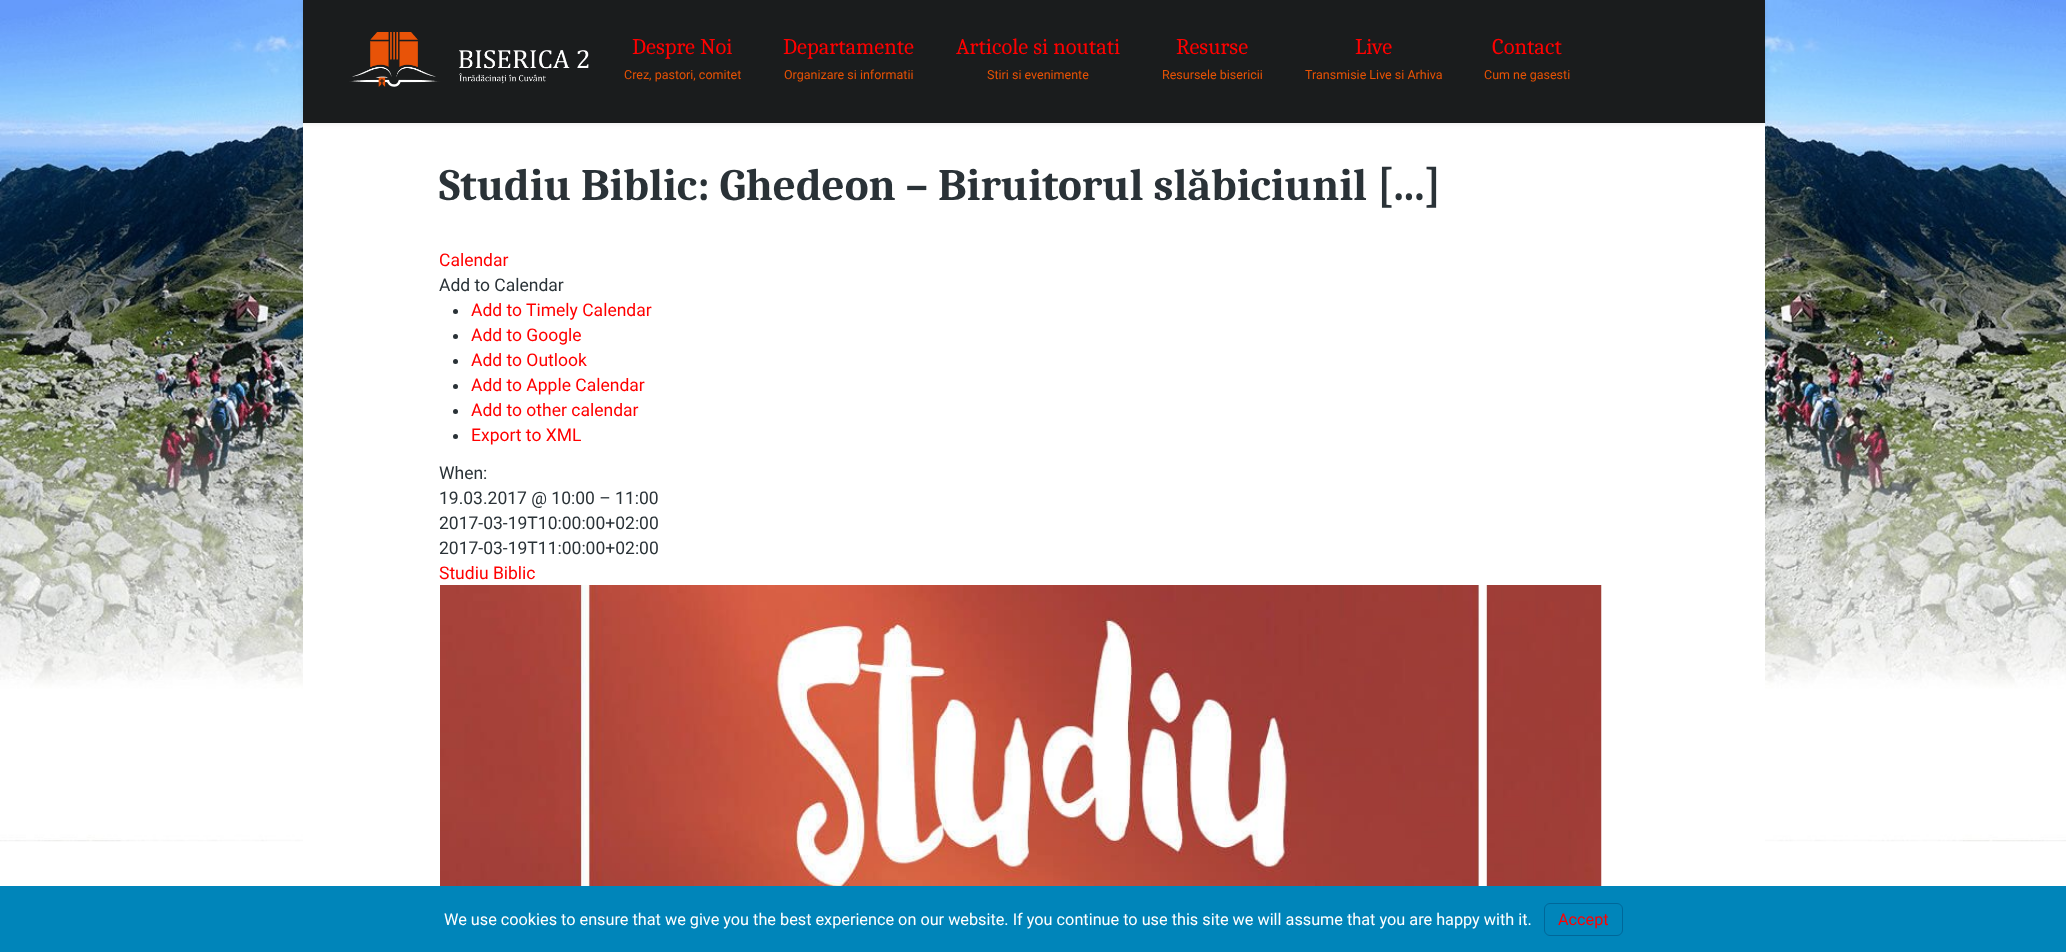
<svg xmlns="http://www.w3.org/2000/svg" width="2066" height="952">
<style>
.a{font:22.5px Caladea;fill:#f00}
.b{font:12.5px Roboto;fill:#e75204}
.c{font:bold 45px Caladea;fill:#2a3237}
.d{font:17.5px Roboto;fill:#f00}
.e{font:17.5px Roboto;fill:#2a3237}
.f{font:16.25px Roboto;fill:#fff}
.g{font:16.25px Roboto;fill:#f00}
</style>
<rect width="100%" height="100%" fill="#fff"/>
<image href="1.png" x="0" y="0" width="2066" height="842"/>
<path fill="#fff" d="M303 123h1462v719H303z"/>
<path fill="#00000012" filter="blur(2.5px)" d="M303 1h1462v123H303z"/>
<path fill="#1a1c1d" d="M303 0h1462v123H303z"/>
<image href="2.png" x="349" y="32" width="240" height="55"/>
<circle fill="#2a3237" cx="455.5" cy="311.5" r="2.5"/>
<circle fill="#2a3237" cx="455.5" cy="336.5" r="2.5"/>
<circle fill="#2a3237" cx="455.5" cy="361.5" r="2.5"/>
<circle fill="#2a3237" cx="455.5" cy="386.5" r="2.5"/>
<circle fill="#2a3237" cx="455.5" cy="411.5" r="2.5"/>
<circle fill="#2a3237" cx="455.5" cy="436.5" r="2.5"/>
<image href="3.png" x="440" y="585" width="1162" height="301"/>
<path fill="#0085ba" d="M0 886h2066v66H0z"/>
<rect fill="none" stroke="#006799" x="1544.5" y="903.5" width="78" height="32" rx="5.5"/>
<text class="a" x="632" y="54">Despre Noi</text>
<text class="b" x="624" y="79">Crez, pastori, comitet</text>
<text class="a" x="783" y="54">Departamente</text>
<text class="b" x="784" y="79">Organizare si informatii</text>
<text class="a" x="956" y="54">Articole si noutati</text>
<text class="b" x="987" y="79">Stiri si evenimente</text>
<text class="a" x="1176" y="54">Resurse</text>
<text class="b" x="1162" y="79">Resursele bisericii</text>
<text class="a" x="1355" y="54">Live</text>
<text class="b" x="1305" y="79">Transmisie Live si Arhiva</text>
<text class="a" x="1492" y="54">Contact</text>
<text class="b" x="1484" y="79">Cum ne gasesti</text>
<text class="c" x="439" y="200">Studiu Biblic: Ghedeon – Biruitorul slăbiciunil [...]</text>
<text class="d" x="439" y="266">Calendar</text>
<text class="e" x="439" y="291">Add to Calendar</text>
<text class="d" x="471" y="316">Add to Timely Calendar</text>
<text class="d" x="471" y="341">Add to Google</text>
<text class="d" x="471" y="366">Add to Outlook</text>
<text class="d" x="471" y="391">Add to Apple Calendar</text>
<text class="d" x="471" y="416">Add to other calendar</text>
<text class="d" x="471" y="441">Export to XML</text>
<text class="e" x="439" y="479">When:</text>
<text class="e" x="439" y="504">19.03.2017 @ 10:00 – 11:00</text>
<text class="e" x="439" y="529">2017-03-19T10:00:00+02:00</text>
<text class="e" x="439" y="554">2017-03-19T11:00:00+02:00</text>
<text class="d" x="439" y="579">Studiu Biblic</text>
<text class="f" x="444" y="925">We use cookies to ensure that we give you the best experience on our website. If you continue to use this site we will assume that you are happy with it.</text>
<text class="g" x="1558" y="925">Accept</text>
</svg>
